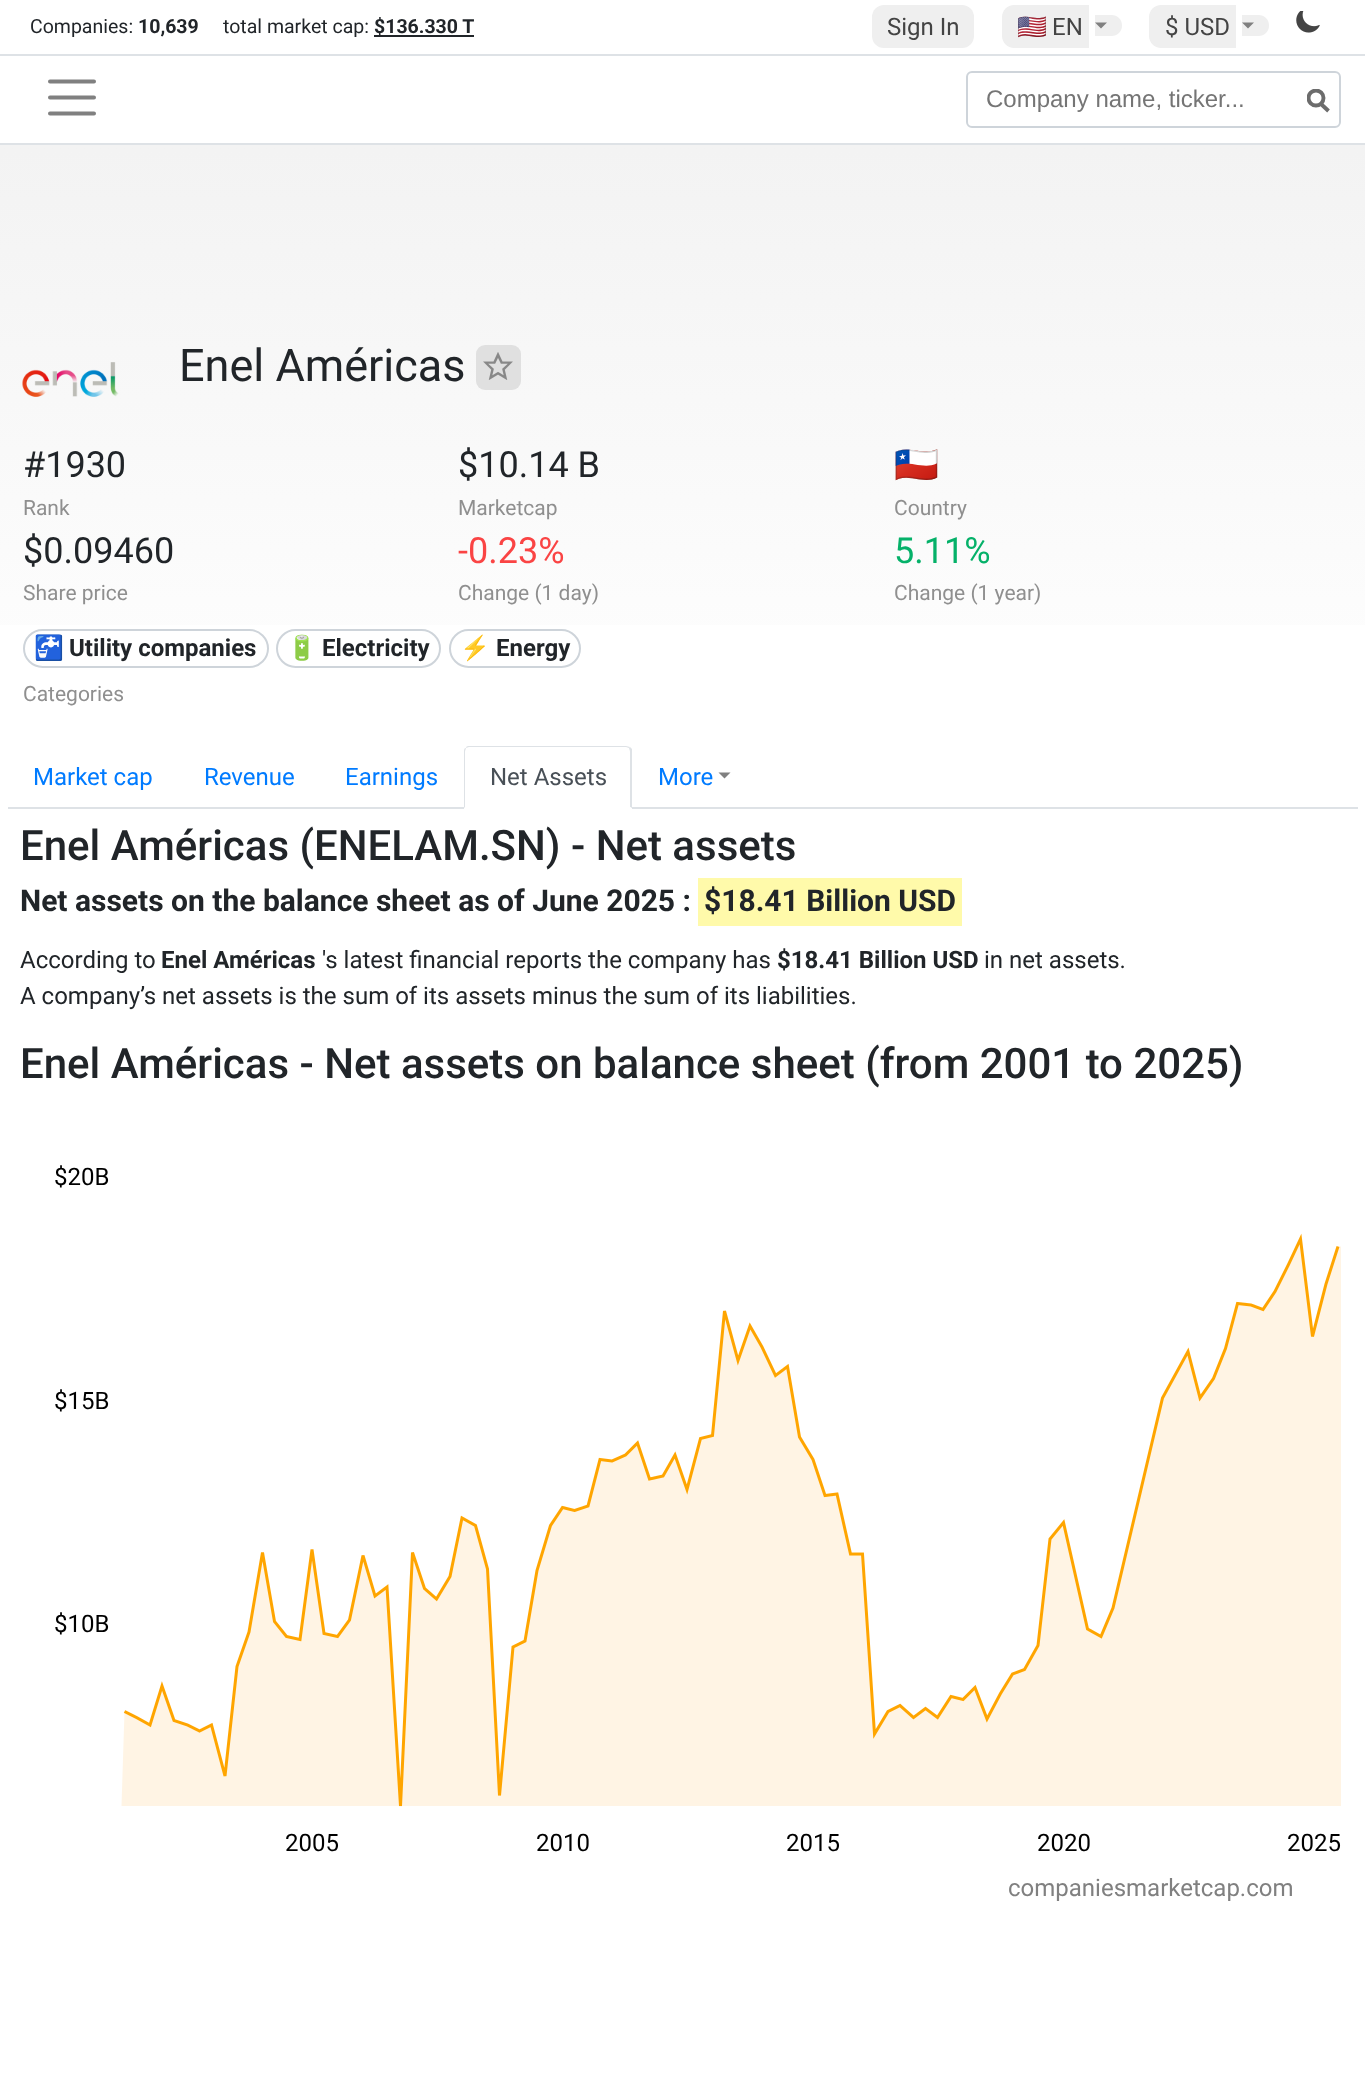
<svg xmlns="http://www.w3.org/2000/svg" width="1365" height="2091">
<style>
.a{font:19.5px Roboto;fill:#212529}
.b{font:bold 19.5px Roboto;fill:#212529}
.c{font:24px Roboto;fill:#444}
.d{font:24px Noto Color Emoji;fill:#444}
.e{font:24px Liberation Sans;fill:#757575}
.f{font:45px Roboto;fill:#212529}
.g{font:36px Roboto;fill:#212529}
.h{font:21px Roboto;fill:#8f8f8f}
.i{font:36px Noto Color Emoji;fill:#212529}
.j{font:36px Roboto;fill:#fa4444}
.k{font:36px Roboto;fill:#05b169}
.l{font:bold 24px Noto Color Emoji;fill:#212529}
.m{font:bold 24px Roboto;fill:#212529}
.n{font:24px Roboto;fill:#007bff}
.o{font:24px Roboto;fill:#495057}
.p{font:500 42px Roboto;fill:#212529}
.q{font:bold 30px Roboto;fill:#212529}
.r{font:24px Roboto;fill:#212529}
.s{font:24px Roboto;fill:#000}
.t{font:24px Roboto;fill:#808080}
</style>
<defs>
<linearGradient id="g1" gradientUnits="userSpaceOnUse" x1="683" y1="750" x2="683" y2="0"><stop offset="0" stop-color="#fff"/><stop offset="1" stop-color="#f0f0f0"/></linearGradient>
<clipPath id="clip1"><path d="M1307 89h27v27H1307z"/></clipPath>
</defs>
<rect width="100%" height="100%" fill="#fff"/>
<path fill="url(#g1)" d="M0 145h1365v480H0z"/>
<path fill="#212529" d="M374 35h100v2H374z"/>
<rect fill="#efefef" x="872" y="5" width="102" height="43" rx="12"/>
<path fill="#efefef" d="M1014 5h39v43h-39c-6.5 0-12-5.5-12-12v-19c0-6.5 5.5-12 12-12z"/>
<path fill="#efefef" d="M1053 5h36v43H1053z"/>
<path fill="#efefef" d="M1095 15h16.5c6 0 10.5 4.5 10.5 10.5c0 6-4.5 10.5-10.5 10.5h-16.5z"/>
<path fill="#808080" d="M1095 22.5h12l-6 6z"/>
<path fill="#efefef" d="M1161 5h75v43h-75c-6.5 0-12-5.5-12-12v-19c0-6.5 5.5-12 12-12z"/>
<path fill="#efefef" d="M1242 15h16.5c6 0 10.5 4.5 10.5 10.5c0 6-4.5 10.5-10.5 10.5h-16.5z"/>
<path fill="#808080" d="M1242 22.5h12l-6 6z"/>
<image href="1.png" x="1296" y="11" width="24" height="22"/>
<path fill="#dee2e6" d="M0 54h1365v2H0z"/>
<path fill="#dee2e6" d="M0 143h1365v2H0z"/>
<path fill="none" stroke="#808080" stroke-width="4" stroke-linecap="round" d="M50 81.5h44m-44 16h44m-44 16h44"/>
<rect fill="none" stroke="#ced4da" stroke-width="2" x="967" y="72" width="373" height="55" rx="5"/>
<path fill="none" stroke="#6c6c6c" stroke-width="3.9" d="M1328.5 111l-8-7.5"/>
<g clip-path="url(#clip1)">
<circle fill="none" stroke="#6c6c6c" stroke-width="3.9" cx="1316" cy="98" r="7.5"/>
</g>
<image href="2.png" x="22" y="362" width="97" height="35"/>
<rect fill="#e0e0e0" x="476" y="345" width="45" height="45" rx="9"/>
<image href="3.png" x="483" y="352" width="30" height="28"/>
<rect fill="none" stroke="#ced4da" stroke-width="2" x="24" y="630" width="244" height="37" rx="18.5"/>
<rect fill="none" stroke="#ced4da" stroke-width="2" x="277" y="630" width="163" height="37" rx="18.5"/>
<rect fill="none" stroke="#ced4da" stroke-width="2" x="450" y="630" width="130" height="37" rx="18.5"/>
<path fill="#dee2e6" d="M8 807h1350v2H8z"/>
<path fill="#fff" d="M470 746h156c3.5 0 6 2.5 6 6v57h-168v-57c0-3.5 2.5-6 6-6z"/>
<path fill="#dee2e6" d="M470 746c-2 0-4 0-4 2l3-1h157l3 1l1-1l-4-1z"/>
<path fill="#dee2e6" d="M630 747l2 2v59l-2-1v-55c0-2-1-3-1-4z"/>
<path fill="#fff" d="M631 808h-167l1-1h165z"/>
<path fill="#dee2e6" d="M466 748c-2 0-2 2-2 4v56l1-1v-55c0-2 1-3 1-4z"/>
<path fill="#808080" d="M718.5 772.5h12l-6 6z"/>
<path fill="#fffaaa" d="M698 878h264v48H698z"/>
<image href="4.png" x="121" y="1233" width="1220" height="574"/>
<text class="a" x="30" y="33">Companies:</text>
<text class="b" x="138" y="33">10,639</text>
<text class="a" x="223" y="33">total market cap:</text>
<text class="b" x="374" y="33">$136.330 T</text>
<text class="c" x="887" y="35">Sign In</text>
<text class="d" x="1017" y="35">🇺🇸</text>
<text class="c" x="1052" y="35">EN</text>
<text class="c" x="1165" y="35">$ USD</text>
<text class="e" x="986" y="107">Company name, ticker...</text>
<text class="f" x="179" y="381">Enel Américas</text>
<text class="g" x="23" y="477">#1930</text>
<text class="h" x="23" y="515">Rank</text>
<text class="g" x="458" y="477">$10.14 B</text>
<text class="h" x="458" y="515">Marketcap</text>
<text class="i" x="894" y="477">🇨🇱</text>
<text class="h" x="894" y="515">Country</text>
<text class="g" x="23" y="563">$0.09460</text>
<text class="h" x="23" y="600">Share price</text>
<text class="j" x="458" y="563">-0.23%</text>
<text class="h" x="458" y="600">Change (1 day)</text>
<text class="k" x="894" y="563">5.11%</text>
<text class="h" x="894" y="600">Change (1 year)</text>
<text class="l" x="34" y="656">🚰</text>
<text class="m" x="69" y="656">Utility companies</text>
<text class="l" x="287" y="656">🔋</text>
<text class="m" x="322" y="656">Electricity</text>
<text class="l" x="460" y="656">⚡</text>
<text class="m" x="496" y="656">Energy</text>
<text class="h" x="23" y="701">Categories</text>
<text class="n" x="33" y="785">Market cap</text>
<text class="n" x="204" y="785">Revenue</text>
<text class="n" x="345" y="785">Earnings</text>
<text class="o" x="490" y="785">Net Assets</text>
<text class="n" x="658" y="785">More</text>
<text class="p" x="20" y="860">Enel Américas (ENELAM.SN) - Net assets</text>
<text class="q" x="20" y="911">Net assets on the balance sheet as of June 2025 :</text>
<text class="q" x="704" y="911">$18.41 Billion USD</text>
<text class="r" x="20" y="968">According to</text>
<text class="m" x="161" y="968">Enel Américas</text>
<text class="r" x="322" y="968">'s latest financial reports the company has</text>
<text class="m" x="777" y="968">$18.41 Billion USD</text>
<text class="r" x="984" y="968">in net assets.</text>
<text class="r" x="20" y="1004">A company’s net assets is the sum of its assets minus the sum of its liabilities.</text>
<text class="p" x="20" y="1078">Enel Américas - Net assets on balance sheet (from 2001 to 2025)</text>
<text class="s" x="54" y="1185">$20B</text>
<text class="s" x="54" y="1409">$15B</text>
<text class="s" x="54" y="1632">$10B</text>
<text class="s" x="285" y="1851">2005</text>
<text class="s" x="536" y="1851">2010</text>
<text class="s" x="786" y="1851">2015</text>
<text class="s" x="1037" y="1851">2020</text>
<text class="s" x="1287" y="1851">2025</text>
<text class="t" x="1008" y="1896">companiesmarketcap.com</text>
</svg>
